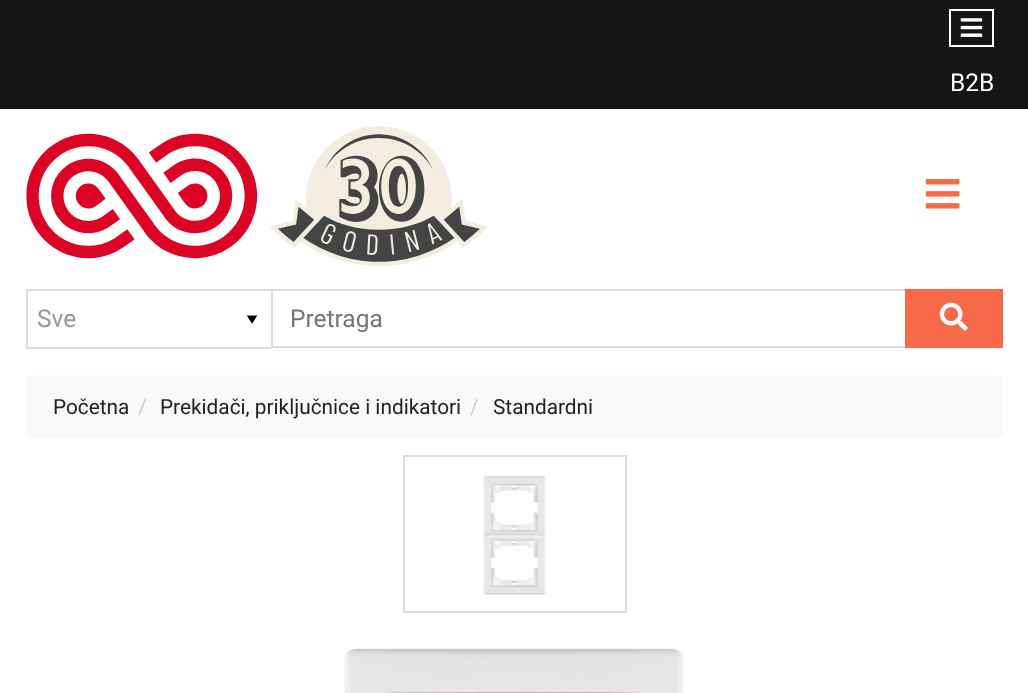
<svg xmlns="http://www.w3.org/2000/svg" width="1028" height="693">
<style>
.a{font:24.5px Roboto;fill:#fff}
.b{font:24.5px Roboto;fill:#999}
.c{font:24.5px Roboto;fill:#757575}
.d{font:20.8px Roboto;fill:#222}
.e{font:20.8px Roboto;fill:#ccc}
</style>
<rect width="100%" height="100%" fill="#fff"/>
<path fill="#151515" d="M0 0h1028v109H0z"/>
<path fill="none" stroke="#fff" stroke-width="2" d="M950 10h43v36H950z"/>
<image href="1.png" x="960" y="18" width="23" height="19"/>
<image href="2.png" x="26" y="126" width="462" height="140"/>
<image href="3.png" x="925" y="179" width="35" height="30"/>
<image href="4.png" x="246" y="315" width="12" height="9"/>
<path fill="#ddd" d="M26 289h245v2H26z"/>
<path fill="#ddd" d="M26 347h245v2H26z"/>
<path fill="#ddd" d="M26 289h2v59H26z"/>
<path fill="none" stroke="#ddd" stroke-width="2" d="M272 290h730v57H272z"/>
<path fill="#f8694a" d="M905 289h98v59H905z"/>
<image href="5.png" x="939" y="302" width="29" height="29"/>
<rect fill="#f9f9f9" x="26" y="375" width="977" height="63" rx="7"/>
<path fill="none" stroke="#ddd" stroke-width="2" d="M404 456h222v156H404z"/>
<image href="6.png" x="483" y="476" width="63" height="119"/>
<image href="7.png" x="343" y="648" width="341" height="45"/>
<text class="a" x="950" y="91">B2B</text>
<text class="b" x="37" y="327">Sve</text>
<text class="c" x="290" y="327">Pretraga</text>
<text class="d" x="53" y="414">Početna</text>
<text class="e" x="138" y="414">/</text>
<text class="d" x="160" y="414">Prekidači, priključnice i indikatori</text>
<text class="e" x="470" y="414">/</text>
<text class="d" x="493" y="414">Standardni</text>
</svg>
